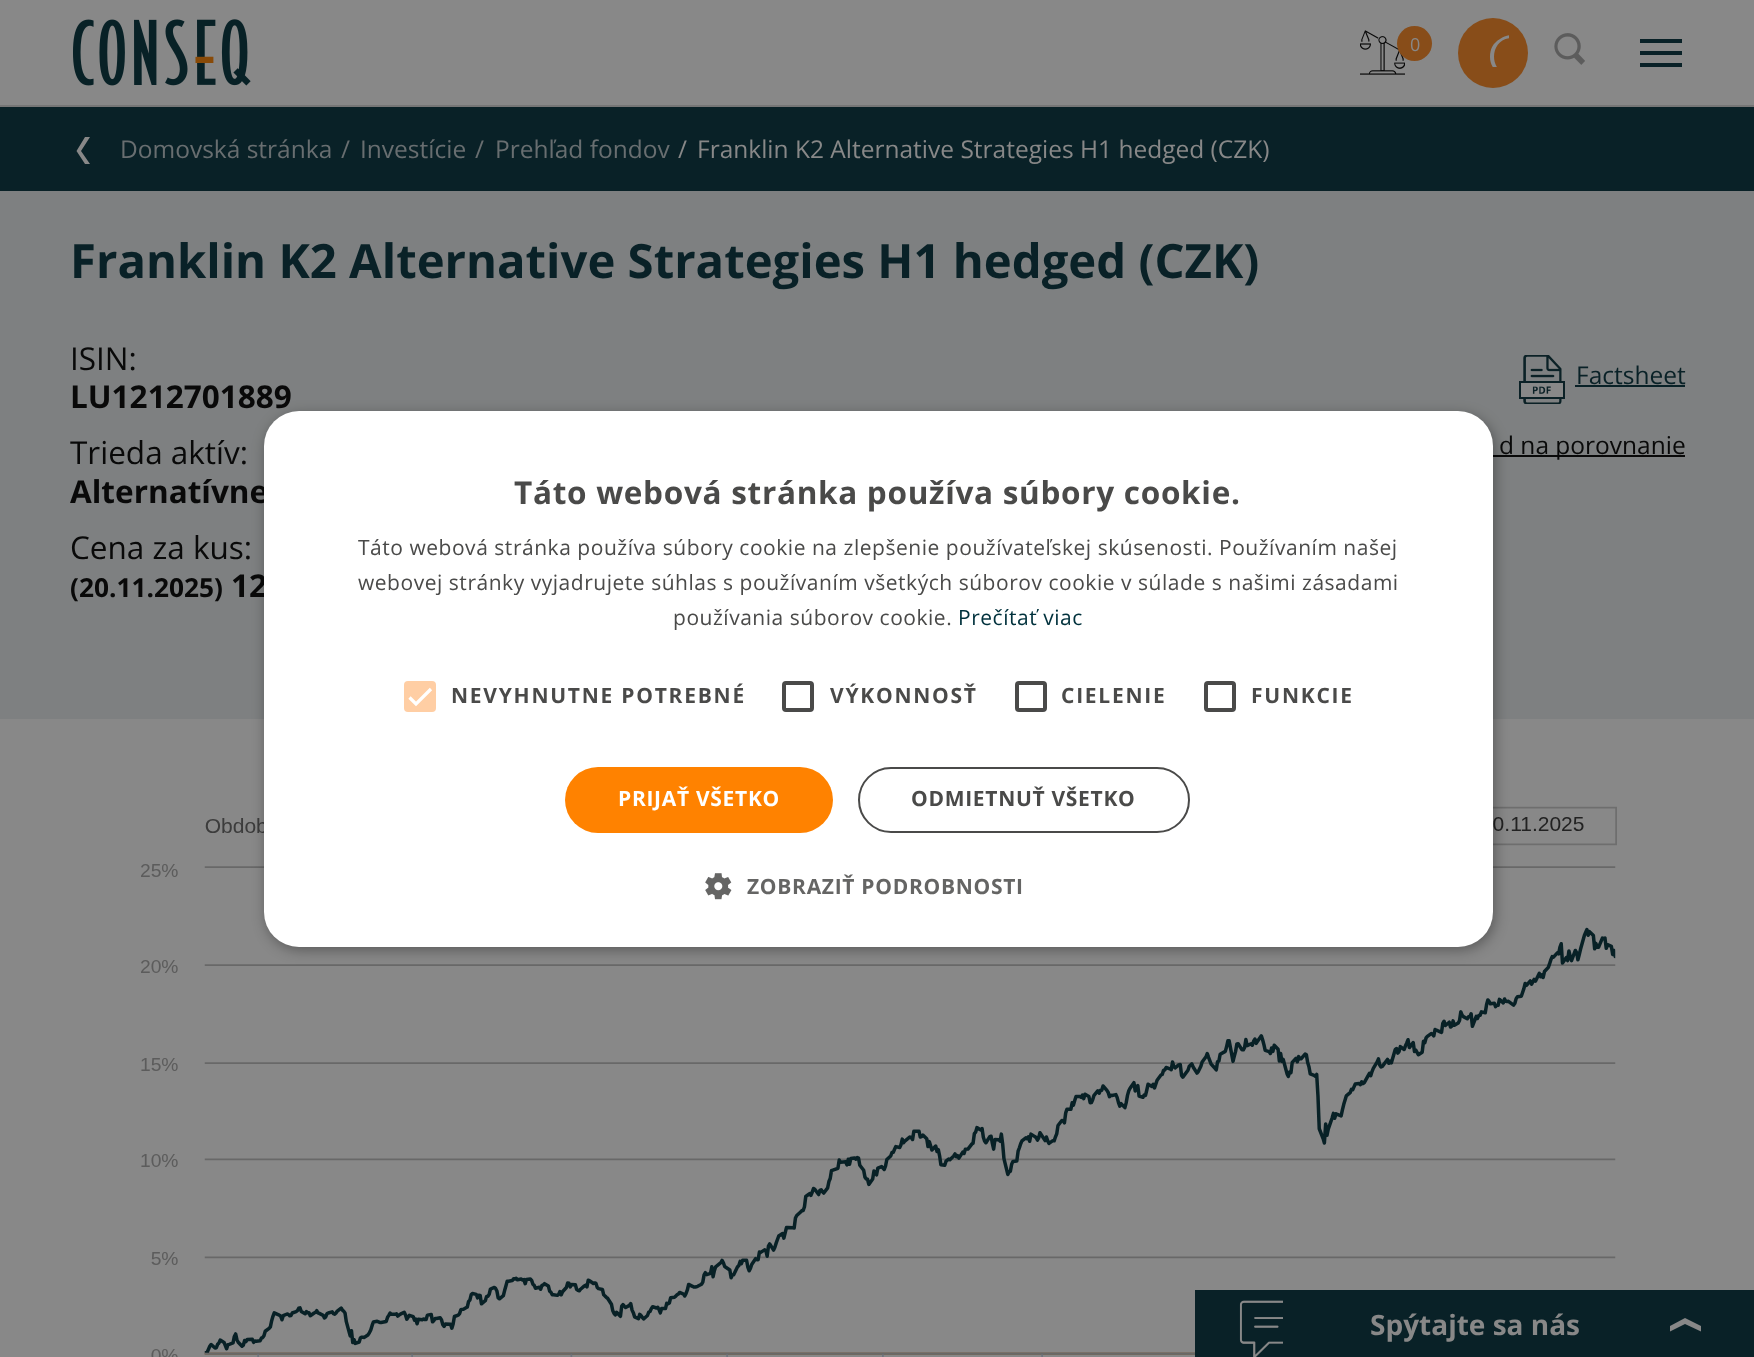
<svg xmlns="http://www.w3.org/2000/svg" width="1754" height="1357">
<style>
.a{font:18px Open Sans;fill:#888}
.b{font:24.5px Open Sans;fill:#686e70}
.c{font:24.5px Open Sans;fill:#888}
.d{font:bold 47.25px Open Sans;fill:#092127}
.e{font:31.5px Open Sans;fill:#090909}
.f{font:bold 31.5px Open Sans;fill:#090909}
.g{font:bold 26.25px Open Sans;fill:#090909}
.h{font:24.5px Open Sans;fill:#092127}
.i{font:24.5px Open Sans;fill:#090909}
.j{font:bold 28px Open Sans;fill:#888}
.k{font:bold 31.5px Open Sans;letter-spacing:0.7px;fill:#4a4a49}
.l{font:21px Open Sans;letter-spacing:0.53px;fill:#4a4a49}
.m{font:21px Open Sans;letter-spacing:0.53px;fill:#00313c}
.n{font:bold 21px Open Sans;letter-spacing:1.75px;fill:#4a4a49}
.o{font:bold 21px Open Sans;letter-spacing:0.7px;fill:#fff}
.p{font:bold 21px Open Sans;letter-spacing:0.7px;fill:#4a4a49}
.q{font:bold 21px Open Sans;letter-spacing:0.7px;fill:#656564}
</style>
<defs>
<clipPath id="clip1"><path d="M1477 35h32v32H1477z"/></clipPath>
</defs>
<rect width="100%" height="100%" fill="#888"/>
<path fill="#767676" d="M0 105h1754v2H0z"/>
<image href="1.png" x="73" y="19" width="178" height="67"/>
<image href="2.png" x="1360" y="30" width="45" height="45"/>
<circle fill="#884d19" cx="1414.5" cy="43.5" r="17.5"/>
<circle fill="#884d19" cx="1493" cy="53" r="35"/>
<g clip-path="url(#clip1)">
<path fill="#888" d="M1545 102l-3-9c-4-8-11-14-20-17c28-17 2-53-22-37c-7 4-10 10-10 18c0 8 5 15 12 19c-10 4-19 11-22 22l-2 7h68zm-63 0c8-32 51-32 59 0zm30-64c24 0 24 37 0 37c-24 0-24-37 0-37z"/>
</g>
<image href="3.png" x="1554" y="33" width="31" height="32"/>
<path fill="#092127" d="M1640 39h42v4H1640z"/>
<path fill="#092127" d="M1640 51h42v4H1640z"/>
<path fill="#092127" d="M1640 63h42v4H1640z"/>
<path fill="#092127" d="M0 107h1754v84H0z"/>
<path fill="#888" d="M85 137l-8.5 14l8.5 13h5l-9-13l9-14z"/>
<path fill="#7e8081" d="M0 191h1754v528H0z"/>
<image href="4.png" x="1519" y="355" width="46" height="49"/>
<path fill="#092127" d="M1575 385h110v2H1575z"/>
<path fill="#090909" d="M1493 455h192v2H1493z"/>
<image href="5.png" x="141" y="806" width="1476" height="551"/>
<path fill="#092127" d="M1195 1290h559v67H1195z"/>
<image href="6.png" x="1239" y="1300" width="44" height="57"/>
<path fill="#888" d="M1670 1326v5.5l15-7.5l16 7.5v-5.5l-16-8z"/>
<rect fill="#00000059" filter="blur(7px)" x="266" y="415" width="1229" height="535" rx="35"/>
<text class="a" x="1410" y="51">0</text>
<text class="b" x="120" y="158">Domovská stránka</text>
<text class="b" x="341" y="158">/</text>
<text class="b" x="360" y="158">Investície</text>
<text class="b" x="475" y="158">/</text>
<text class="b" x="495" y="158">Prehľad fondov</text>
<text class="c" x="678" y="158">/</text>
<text class="c" x="697" y="158">Franklin K2 Alternative Strategies H1 hedged (CZK)</text>
<text class="d" x="70" y="278">Franklin K2 Alternative Strategies H1 hedged (CZK)</text>
<text class="e" x="70" y="370">ISIN:</text>
<text class="f" x="70" y="408">LU1212701889</text>
<text class="e" x="70" y="464">Trieda aktív:</text>
<text class="f" x="70" y="503">Alternatívne</text>
<text class="e" x="70" y="559">Cena za kus:</text>
<text class="g" x="70" y="597">(20.11.2025)</text>
<text class="f" x="231" y="597">12</text>
<text class="h" x="1576" y="384">Factsheet</text>
<text class="i" x="1499" y="454">d na porovnanie</text>
<text class="j" x="1370" y="1335">Spýtajte sa nás</text>
<rect fill="#fff" x="264" y="411" width="1229" height="536" rx="35"/>
<text class="k" x="514" y="504">Táto webová stránka používa súbory cookie.</text>
<text class="l" x="358" y="555">Táto webová stránka používa súbory cookie na zlepšenie používateľskej skúsenosti. Používaním našej</text>
<text class="l" x="358" y="590">webovej stránky vyjadrujete súhlas s používaním všetkých súborov cookie v súlade s našimi zásadami</text>
<text class="l" x="673" y="625">používania súborov cookie.</text>
<text class="m" x="958" y="625">Prečítať viac</text>
<rect fill="#ffcea4" x="404" y="681" width="32" height="31" rx="4"/>
<path fill="none" stroke="#fff" stroke-width="3.2" d="M409.5 697.5l6.5 6.5l15-15"/>
<text class="n" x="451" y="703">NEVYHNUTNE POTREBNÉ</text>
<rect fill="none" stroke="#4a4a49" stroke-width="4" x="784" y="683" width="28" height="27" rx="2"/>
<text class="n" x="830" y="703">VÝKONNOSŤ</text>
<rect fill="none" stroke="#4a4a49" stroke-width="4" x="1017" y="683" width="28" height="27" rx="2"/>
<text class="n" x="1061" y="703">CIELENIE</text>
<rect fill="none" stroke="#4a4a49" stroke-width="4" x="1206" y="683" width="28" height="27" rx="2"/>
<text class="n" x="1251" y="703">FUNKCIE</text>
<rect fill="#ff8200" x="565" y="767" width="268" height="66" rx="33"/>
<text class="o" x="618" y="806">PRIJAŤ VŠETKO</text>
<rect fill="none" stroke="#4a4a49" stroke-width="2" x="859" y="768" width="330" height="64" rx="32"/>
<text class="p" x="911" y="806">ODMIETNUŤ VŠETKO</text>
<image href="7.png" x="705" y="873" width="27" height="27"/>
<text class="q" x="747" y="894">ZOBRAZIŤ PODROBNOSTI</text>
</svg>
